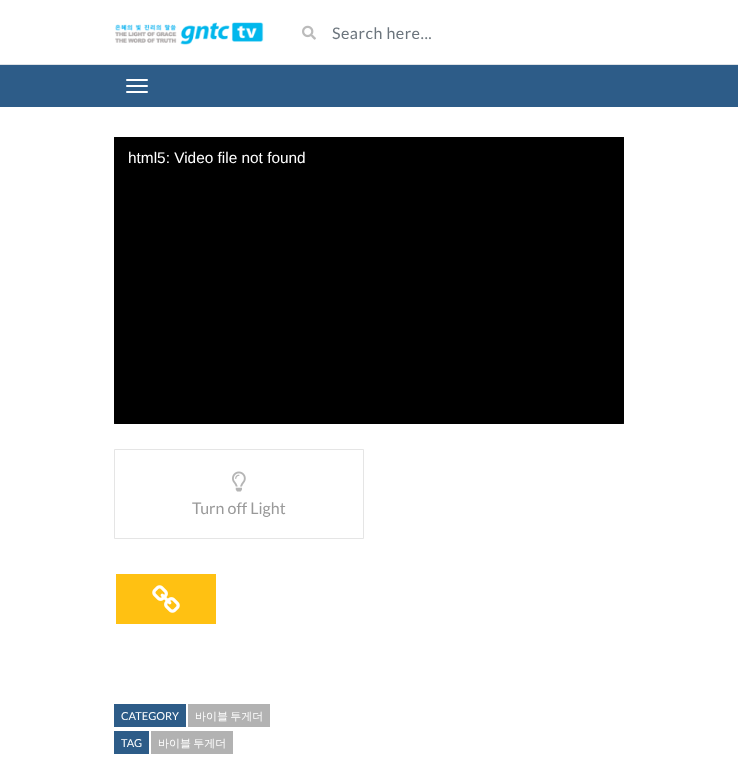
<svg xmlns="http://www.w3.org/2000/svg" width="738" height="784">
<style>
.a{font:16px Lato;letter-spacing:0.5px;fill:#6c757d}
.b{font:15.4px Liberation Sans;fill:#fff}
.c{font:16px Lato;fill:#999}
.d{font:11px Lato;fill:#fff}
.e{font:500 11px WenQuanYi Zen Hei;fill:#fff}
</style>
<rect width="100%" height="100%" fill="#fff"/>
<path fill="#dee2e6" d="M0 64h738v1H0z"/>
<image href="1.png" x="115" y="22" width="149" height="23"/>
<image href="2.png" x="302" y="25" width="14" height="15"/>
<path fill="#2d5c88" d="M0 65h738v42H0z"/>
<rect fill="#fff" x="126" y="79" width="22" height="2" rx="1"/>
<rect fill="#fff" x="126" y="85" width="22" height="2" rx="1"/>
<rect fill="#fff" x="126" y="91" width="22" height="2" rx="1"/>
<path fill="#111" d="M114 137h510v287H114z"/>
<rect fill="#000" x="114" y="137" width="510" height="287" rx="3"/>
<path fill="#00000080" d="M114 137h510v2H114z"/>
<path fill="none" stroke="#e5e5e5" d="M114.5 449.5h249v89H114.5z"/>
<image href="3.png" x="232" y="471" width="14" height="21"/>
<path fill="#ffc112" d="M116 574h100v50H116z"/>
<image href="4.png" x="152" y="585" width="28" height="28"/>
<path fill="#2d5c88" d="M114 704h72v23H114z"/>
<path fill="#b2b2b2" d="M188 704h82v23H188z"/>
<path fill="#2d5c88" d="M114 731h35v23H114z"/>
<path fill="#b2b2b2" d="M151 731h82v23H151z"/>
<text class="a" x="332" y="39">Search here...</text>
<text class="b" x="128" y="163">html5: Video file not found</text>
<text class="c" x="192" y="514">Turn off Light</text>
<text class="d" x="121" y="720">CATEGORY</text>
<text class="e" x="195" y="720" word-spacing="-1">바이블 투게더</text>
<text class="d" x="121" y="747">TAG</text>
<text class="e" x="158" y="747" word-spacing="-1">바이블 투게더</text>
</svg>
